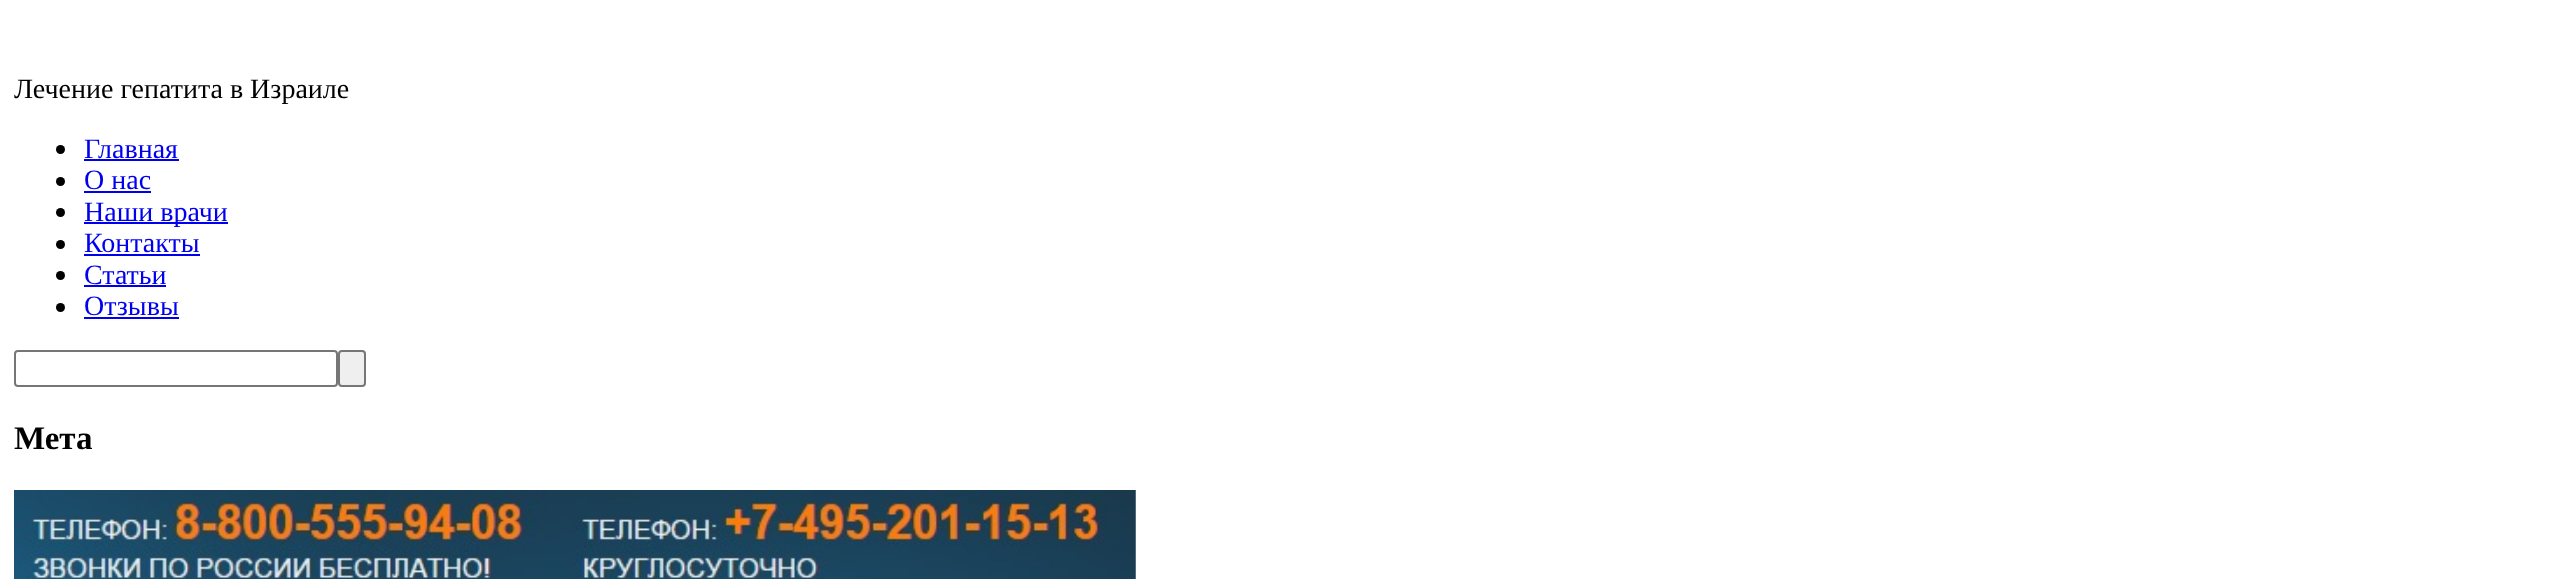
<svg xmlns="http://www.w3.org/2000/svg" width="2566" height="579">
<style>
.a{font:28px Liberation Serif;fill:#000}
.b{font:28px Liberation Serif;fill:#00e}
.c{font:bold 33px Liberation Serif;fill:#000}
</style>
<rect width="100%" height="100%" fill="#fff"/>
<circle fill="#000" cx="60.5" cy="149.5" r="4.5"/>
<path fill="#00e" d="M84 159h95v2H84z"/>
<circle fill="#000" cx="60.5" cy="181.5" r="4.5"/>
<path fill="#00e" d="M84 191h67v2H84z"/>
<circle fill="#000" cx="60.5" cy="212.5" r="4.5"/>
<path fill="#00e" d="M84 222h144v2H84z"/>
<circle fill="#000" cx="60.5" cy="244.5" r="4.5"/>
<path fill="#00e" d="M84 254h116v2H84z"/>
<circle fill="#000" cx="60.5" cy="275.5" r="4.5"/>
<path fill="#00e" d="M84 285h82v2H84z"/>
<circle fill="#000" cx="60.5" cy="307.5" r="4.5"/>
<path fill="#00e" d="M84 317h95v2H84z"/>
<rect fill="none" stroke="#767676" stroke-width="2" x="15" y="351" width="322" height="35" rx="3"/>
<rect fill="#efefef" stroke="#767676" stroke-width="2" x="339" y="351" width="26" height="35" rx="3"/>
<image href="1.png" x="14" y="490" width="1122" height="89"/>
<text class="a" x="14" y="98">Лечение гепатита в Израиле</text>
<text class="b" x="84" y="158">Главная</text>
<text class="b" x="84" y="189">О нас</text>
<text class="b" x="84" y="221">Наши врачи</text>
<text class="b" x="84" y="252">Контакты</text>
<text class="b" x="84" y="284">Статьи</text>
<text class="b" x="84" y="315">Отзывы</text>
<text class="c" x="14" y="449">Мета</text>
</svg>
